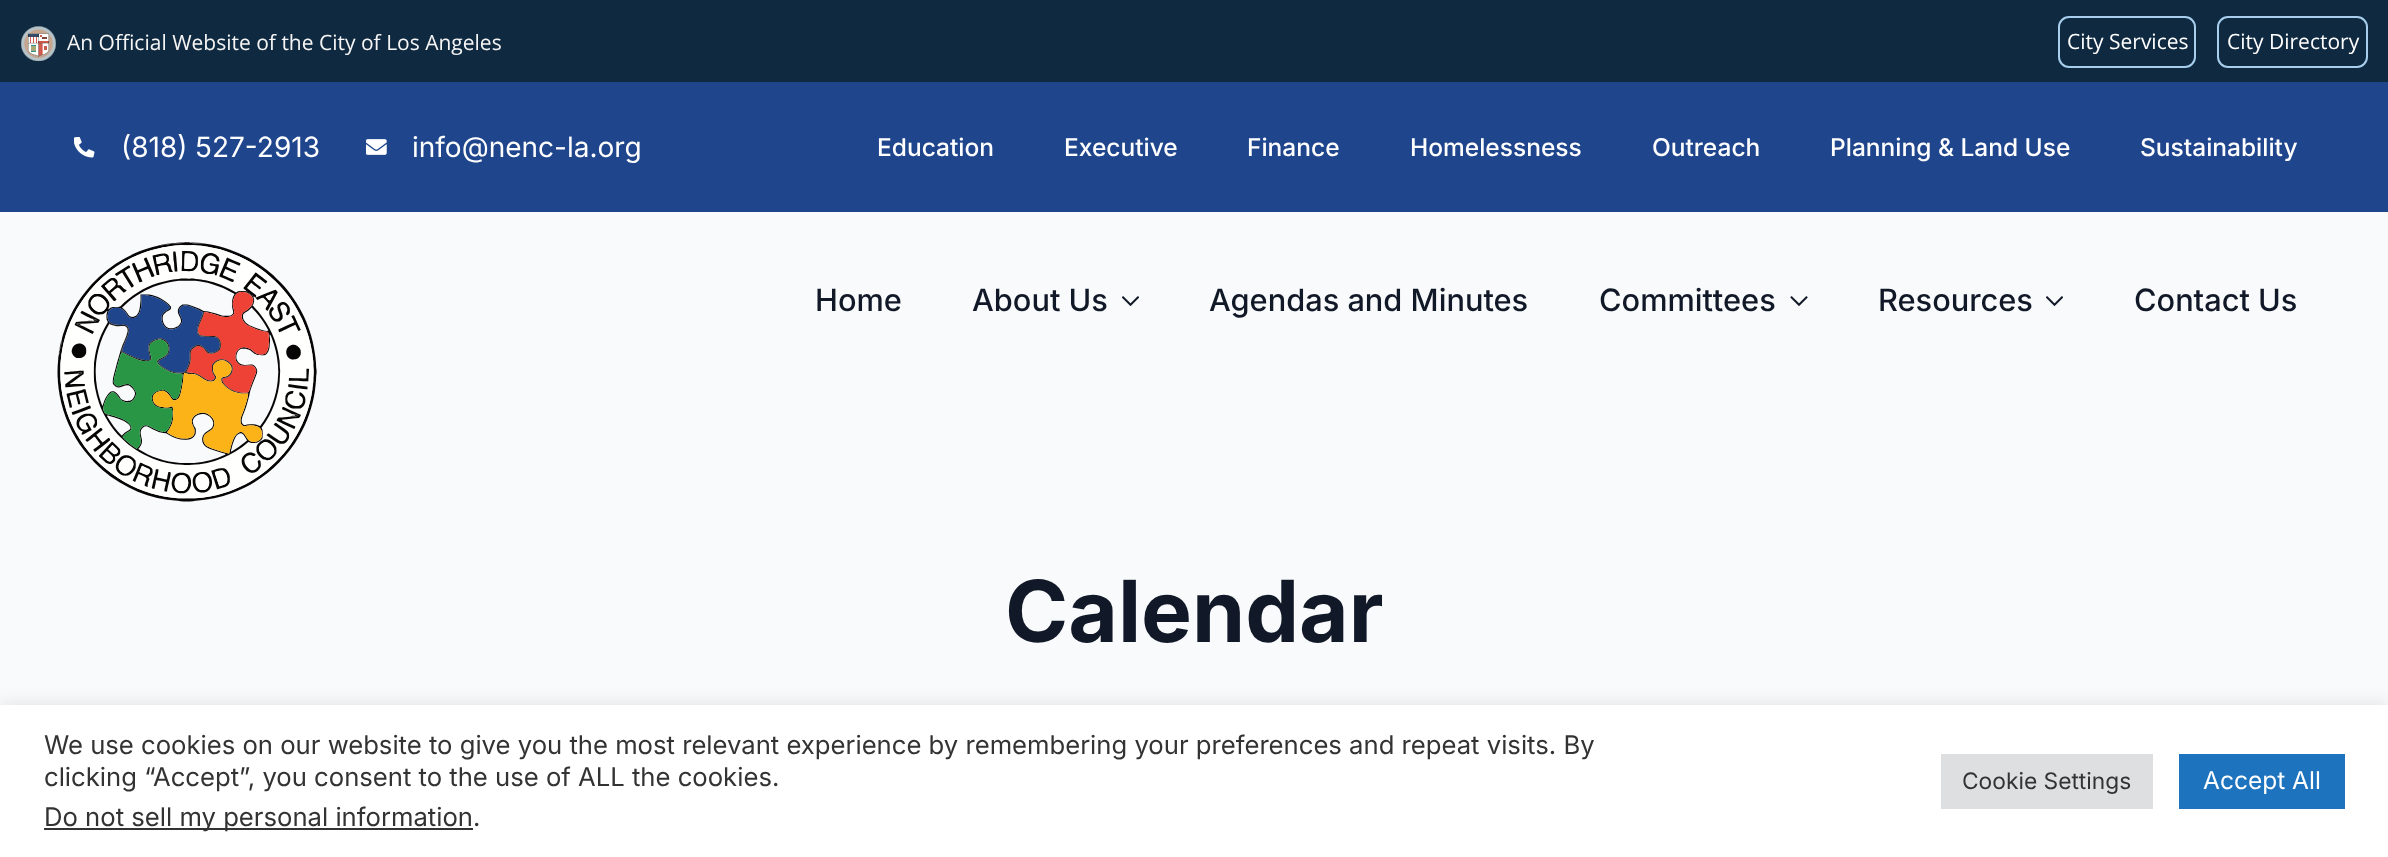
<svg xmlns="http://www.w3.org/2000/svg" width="2388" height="857">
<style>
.a{font:21px Open Sans;fill:#f5f5f5}
.b{font:21px Open Sans;fill:#fff}
.c{font:28px Inter;fill:#fff}
.d{font:500 24.5px Inter;fill:#fff}
.e{font:500 30.75px Inter;fill:#111827}
.f{font:bold 85.5px Inter;fill:#111827}
.g{font:25.67px Inter;fill:#333}
.h{font:22.75px Inter;fill:#333}
.i{font:24.5px Inter;fill:#fff}
</style>
<rect width="100%" height="100%" fill="#f9fafb"/>
<path fill="#0f2940" d="M0 0h2388v82H0z"/>
<image href="1.png" x="21" y="26" width="35" height="35"/>
<rect fill="none" stroke="#a7ceec" stroke-width="2" x="2059" y="17" width="136" height="50" rx="10"/>
<rect fill="none" stroke="#a7ceec" stroke-width="2" x="2218" y="17" width="149" height="50" rx="10"/>
<path fill="#1f458c" d="M0 82h2388v130H0z"/>
<image href="2.png" x="74" y="137" width="21" height="21"/>
<image href="3.png" x="366" y="139" width="21" height="16"/>
<image href="4.png" x="57" y="242" width="260" height="260"/>
<image href="5.png" x="1122" y="296" width="17" height="10"/>
<image href="6.png" x="1790" y="296" width="18" height="10"/>
<image href="5.png" x="2046" y="296" width="17" height="10"/>
<path fill="#acabab4d" filter="blur(9px)" d="M0 704h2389v152H0z"/>
<path fill="#fff" d="M0 705h2388v152H0z"/>
<path fill="#333" d="M44 828h429v2H44z"/>
<path fill="#dedfe0" d="M1941 754h212v55H1941z"/>
<path fill="#1e73be" d="M2179 754h166v55H2179z"/>
<text class="a" x="67" y="50">An Official Website of the City of Los Angeles</text>
<text class="b" x="2067" y="49">City Services</text>
<text class="b" x="2227" y="49">City Directory</text>
<text class="c" x="121" y="157">(818) 527-2913</text>
<text class="c" x="412" y="157">info@nenc-la.org</text>
<text class="d" x="877" y="156">Education</text>
<text class="d" x="1064" y="156">Executive</text>
<text class="d" x="1247" y="156">Finance</text>
<text class="d" x="1410" y="156">Homelessness</text>
<text class="d" x="1652" y="156">Outreach</text>
<text class="d" x="1830" y="156">Planning &amp; Land Use</text>
<text class="d" x="2140" y="156">Sustainability</text>
<text class="e" x="815" y="311">Home</text>
<text class="e" x="972" y="311">About Us</text>
<text class="e" x="1209" y="311">Agendas and Minutes</text>
<text class="e" x="1599" y="311">Committees</text>
<text class="e" x="1878" y="311">Resources</text>
<text class="e" x="2134" y="311">Contact Us</text>
<text class="f" x="1005" y="642">Calendar</text>
<text class="g" x="44" y="754">We use cookies on our website to give you the most relevant experience by remembering your preferences and repeat visits. By</text>
<text class="g" x="44" y="786">clicking “Accept”, you consent to the use of ALL the cookies.</text>
<text class="g" x="44" y="826">Do not sell my personal information.</text>
<text class="h" x="1962" y="789">Cookie Settings</text>
<text class="i" x="2203" y="789">Accept All</text>
</svg>
